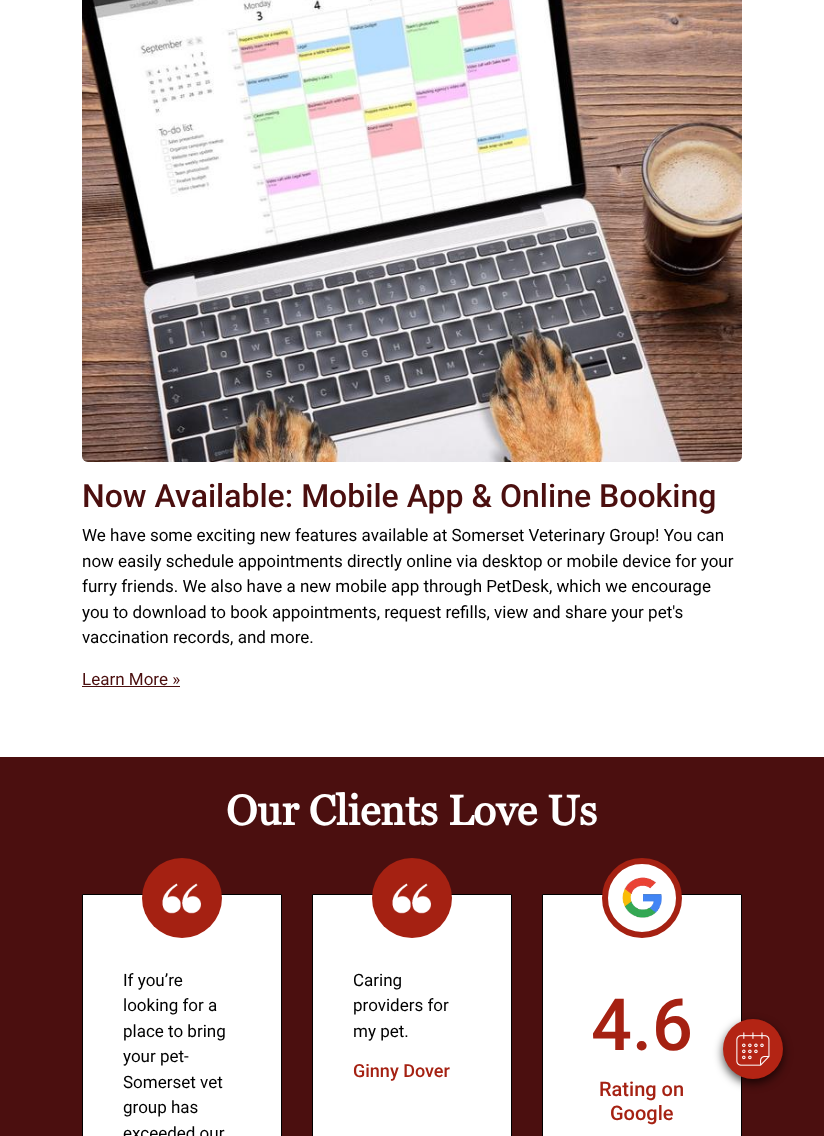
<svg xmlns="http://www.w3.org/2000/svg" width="824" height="1136">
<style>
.a{font:500 32px Roboto;fill:#4b0f0f}
.b{font:17px Roboto;fill:#000}
.c{font:17px Roboto;fill:#4b0f0f}
.d{font:bold 42px Georgia;fill:#fff}
.e{font:500 18px Roboto;fill:#a52112}
.f{font:500 72px Roboto;fill:#a52112}
.g{font:500 20px Roboto;fill:#a52112}
</style>
<rect width="100%" height="100%" fill="#fff"/>
<image href="1.png" x="82" y="0" width="660" height="462"/>
<path fill="#4b0f0f" d="M82 686h98v1H82z"/>
<path fill="#4b0f0f" d="M0 757h824v379H0z"/>
<path fill="#fff" stroke="#000" d="M82.5 894.5h199v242H82.5z"/>
<circle fill="#a52112" cx="182" cy="898" r="40"/>
<image href="2.png" x="162" y="883" width="39" height="31"/>
<path fill="#fff" stroke="#000" d="M312.5 894.5h199v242H312.5z"/>
<circle fill="#a52112" cx="412" cy="898" r="40"/>
<image href="2.png" x="392" y="883" width="39" height="31"/>
<path fill="#fff" stroke="#000" d="M542.5 894.5h199v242H542.5z"/>
<circle fill="#fff" stroke="#a52112" stroke-width="6" cx="642" cy="898" r="37"/>
<image href="3.png" x="622" y="877" width="40" height="41"/>
<rect fill="#000000b3" filter="blur(5px)" x="723" y="1023" width="60" height="60" rx="30"/>
<circle fill="#b32414" cx="753" cy="1049" r="30"/>
<image href="4.png" x="736" y="1032" width="34" height="34"/>
<text class="a" x="82" y="507">Now Available: Mobile App &amp; Online Booking</text>
<text class="b" x="82" y="541">We have some exciting new features available at Somerset Veterinary Group! You can</text>
<text class="b" x="82" y="567">now easily schedule appointments directly online via desktop or mobile device for your</text>
<text class="b" x="82" y="592">furry friends. We also have a new mobile app through PetDesk, which we encourage</text>
<text class="b" x="82" y="618">you to download to book appointments, request refills, view and share your pet's</text>
<text class="b" x="82" y="643">vaccination records, and more.</text>
<text class="c" x="82" y="685">Learn More »</text>
<text class="d" x="226" y="825">Our Clients Love Us</text>
<text class="b" x="123" y="986">If you’re</text>
<text class="b" x="123" y="1011">looking for a</text>
<text class="b" x="123" y="1037">place to bring</text>
<text class="b" x="123" y="1062">your pet-</text>
<text class="b" x="123" y="1088">Somerset vet</text>
<text class="b" x="123" y="1113">group has</text>
<text class="b" x="123" y="1139">exceeded our</text>
<text class="b" x="353" y="986">Caring</text>
<text class="b" x="353" y="1011">providers for</text>
<text class="b" x="353" y="1037">my pet.</text>
<text class="e" x="353" y="1077">Ginny Dover</text>
<text class="f" x="591" y="1050">4.6</text>
<text class="g" x="599" y="1096">Rating on</text>
<text class="g" x="610" y="1120">Google</text>
</svg>
